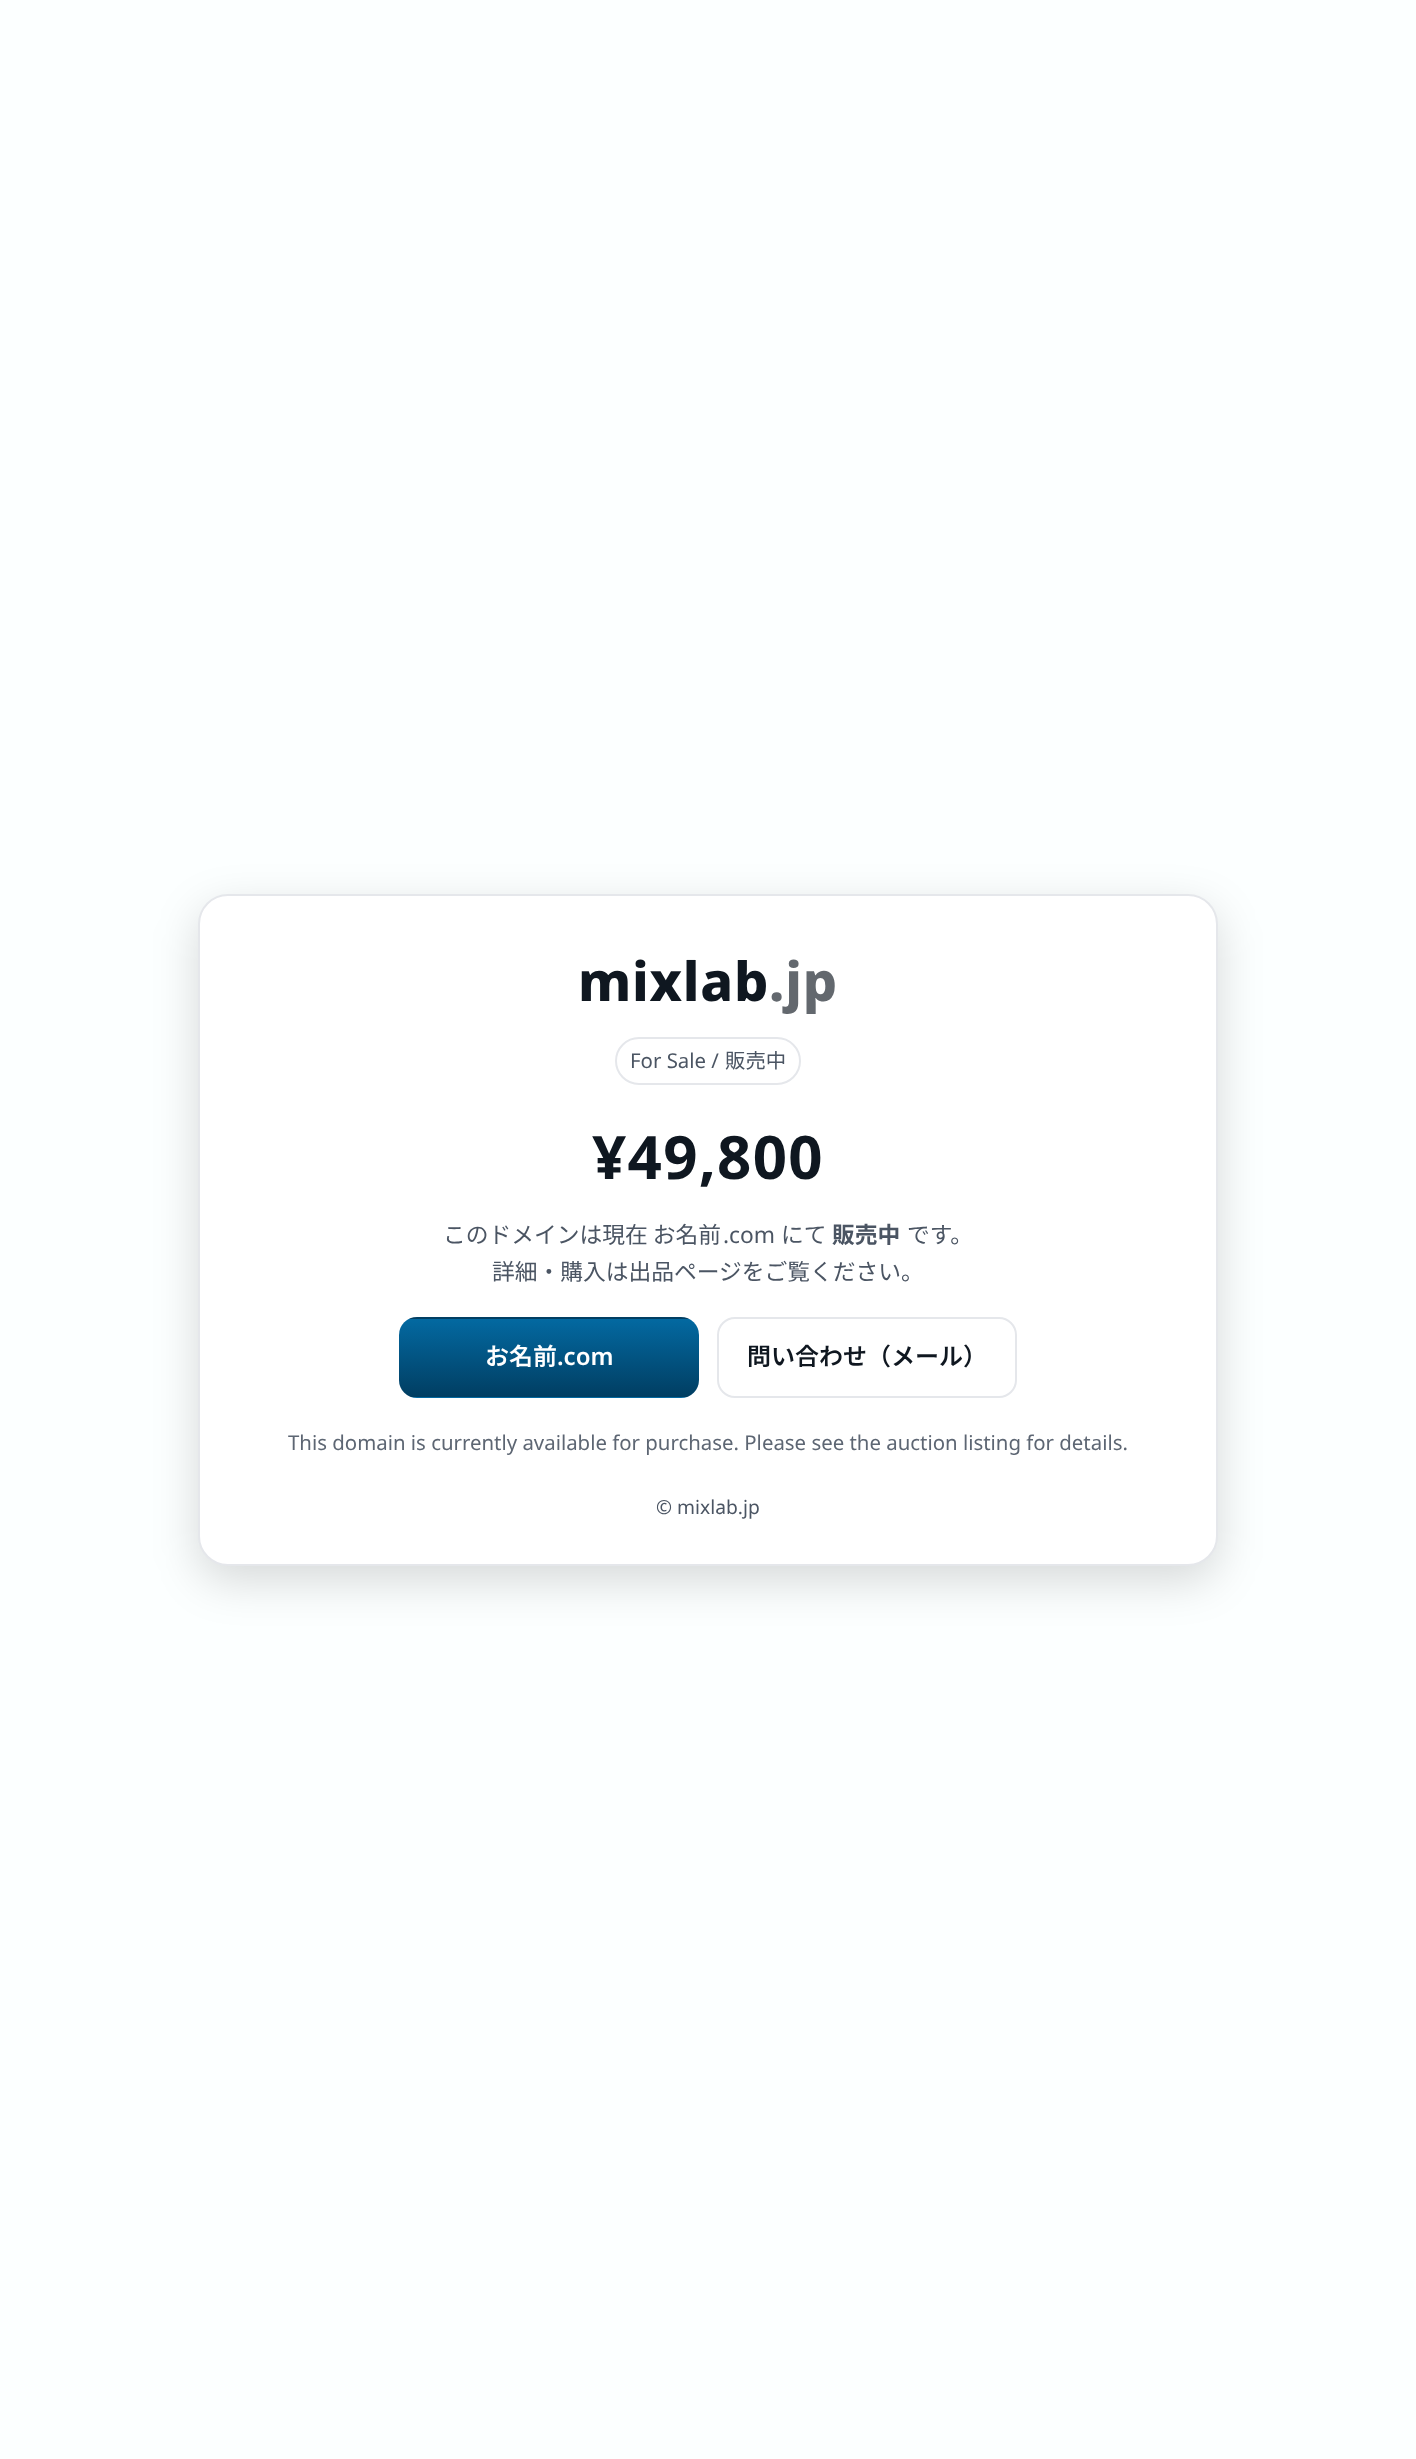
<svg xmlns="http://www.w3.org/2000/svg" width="1416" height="2459">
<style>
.a{font:800 54px Noto Sans;letter-spacing:0.75px;fill:#0f1720}
.b{font:800 54px Noto Sans;letter-spacing:0.75px;fill:#63686e}
.c{font:20.4px Noto Sans;fill:#4b5563}
.d{font:20.4px Noto Sans JP;fill:#4b5563}
.e{font:bold 60px Noto Sans;letter-spacing:1.25px;fill:#0f1720}
.f{font:22.75px Noto Sans JP;fill:#4b5563}
.g{font:22.75px Noto Sans;fill:#4b5563}
.h{font:bold 22.75px Noto Sans JP;fill:#4b5563}
.i{font:600 24px Noto Sans JP;fill:#fff}
.j{font:600 24px Noto Sans;fill:#fff}
.k{font:600 24px Noto Sans JP;fill:#0f1720}
.l{font:20.4px Noto Sans;fill:#5d6673}
.m{font:19.25px Noto Sans;fill:#4b5563}
</style>
<defs>
<radialGradient id="g1" gradientUnits="userSpaceOnUse" cx="708" cy="-246" r="120"><stop offset="0" stop-color="#e5e7eb"/><stop offset="0.6" stop-color="#fcffff"/></radialGradient>
<clipPath id="clip1"><rect x="399" y="1317" width="300" height="81" rx="18"/></clipPath>
<linearGradient id="g2" gradientUnits="userSpaceOnUse" x1="549" y1="1241" x2="549" y2="1319"><stop offset="0" stop-color="#0369a1"/><stop offset="1" stop-color="#013e62"/></linearGradient>
<linearGradient id="g3" gradientUnits="userSpaceOnUse" x1="549" y1="1319" x2="549" y2="1397"><stop offset="0" stop-color="#0369a1"/><stop offset="1" stop-color="#013e62"/></linearGradient>
<linearGradient id="g4" gradientUnits="userSpaceOnUse" x1="549" y1="1397" x2="549" y2="1475"><stop offset="0" stop-color="#0369a1"/><stop offset="1" stop-color="#013e62"/></linearGradient>
</defs>
<rect width="100%" height="100%" fill="#fff"/>
<path fill="url(#g1)" d="M0 0h1416v2459H0z"/>
<rect fill="#00000026" filter="blur(22.5px)" x="198" y="909" width="1020" height="672" rx="30"/>
<rect fill="#fff" stroke="#e5e7eb" stroke-width="2" x="199" y="895" width="1018" height="670" rx="29"/>
<rect fill="none" stroke="#e5e7eb" stroke-width="2" x="616" y="1038" width="184" height="46" rx="23"/>
<g clip-path="url(#clip1)">
<path fill="url(#g2)" d="M409 1317h280v2H409z"/>
<path fill="url(#g3)" d="M399 1319h300v78H399z"/>
<path fill="url(#g4)" d="M411 1397h276v1H411z"/>
</g>
<rect fill="none" stroke="#e5e7eb" stroke-width="2" x="718" y="1318" width="298" height="79" rx="17"/>
<text class="a" x="578" y="1001">mixlab</text>
<text class="b" x="769" y="1001">.jp</text>
<text class="c" x="630" y="1068">For Sale /</text>
<text class="d" x="725" y="1068">販売中</text>
<text class="e" x="592" y="1179">¥49,800</text>
<text class="f" x="443" y="1243">このドメインは現在 お名前</text>
<text class="g" x="723" y="1243">.com</text>
<text class="f" x="781" y="1243">にて</text>
<text class="h" x="832" y="1243">販売中</text>
<text class="f" x="907" y="1243">です。</text>
<text class="f" x="492" y="1280">詳細・購入は出品ページをご覧ください。</text>
<text class="i" x="485" y="1365">お名前</text>
<text class="j" x="557" y="1365">.com</text>
<text class="k" x="747" y="1365">問い合わせ（メール）</text>
<text class="l" x="288" y="1450">This domain is currently available for purchase. Please see the auction listing for details.</text>
<text class="m" x="656" y="1514">© mixlab.jp</text>
</svg>
